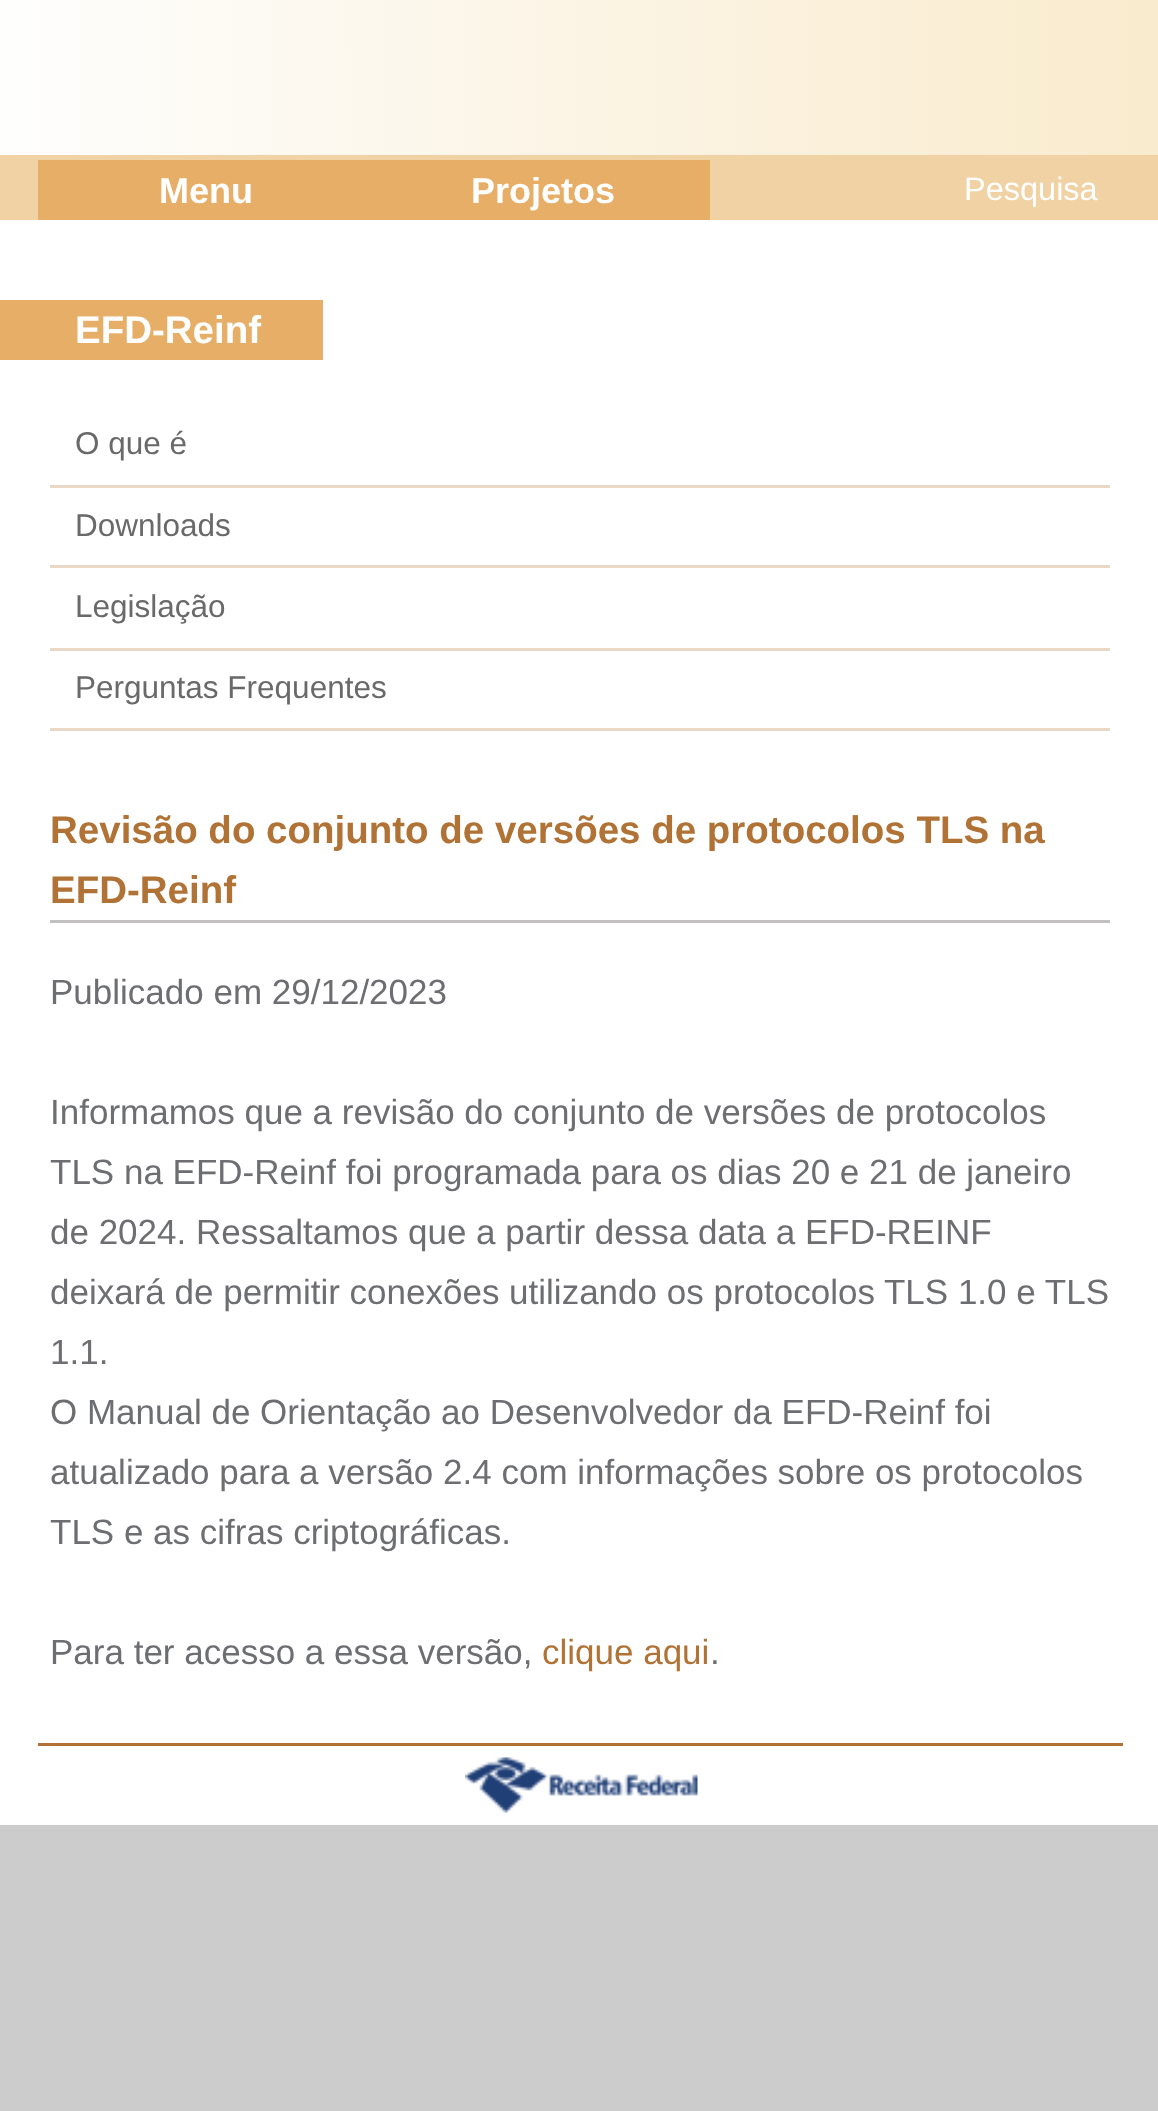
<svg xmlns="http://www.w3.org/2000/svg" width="1158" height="2111">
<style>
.a{font:bold 36px Liberation Sans;fill:#fff}
.b{font:32.5px Liberation Sans;fill:#fff}
.c{font:bold 38.5px Liberation Sans;fill:#fff}
.d{font:31.5px Liberation Sans;fill:#696969}
.e{font:bold 38.5px Liberation Sans;fill:#b07235}
.f{font:35px Liberation Sans;fill:#6d6e72}
.g{font:35px Liberation Sans;fill:#b07235}
</style>
<defs>
<linearGradient id="g1" gradientUnits="userSpaceOnUse" x1="0" y1="78" x2="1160" y2="77"><stop offset="0" stop-color="#fefefd"/><stop offset="1" stop-color="#f9ebcd"/></linearGradient>
</defs>
<rect width="100%" height="100%" fill="#ccc"/>
<path fill="#fff" d="M0 220h1158v1605H0z"/>
<path fill="url(#g1)" d="M0 0h1158v155H0z"/>
<path fill="#f1d2a4" d="M0 155h1158v65H0z"/>
<path fill="#e7ae67" d="M38 160h672v60H38z"/>
<path fill="#e6ae67" d="M0 300h323v60H0z"/>
<path fill="#ead7c6" d="M50 485h1060v3H50z"/>
<path fill="#ead7c6" d="M50 565h1060v3H50z"/>
<path fill="#ead7c6" d="M50 648h1060v3H50z"/>
<path fill="#ead7c6" d="M50 728h1060v3H50z"/>
<path fill="#c2c0c1" d="M50 920h1060v3H50z"/>
<path fill="#b07235" d="M38 1743h1085v3H38z"/>
<image href="1.png" x="465" y="1757" width="233" height="56"/>
<text class="a" x="159" y="203">Menu</text>
<text class="a" x="471" y="203">Projetos</text>
<text class="b" x="964" y="200">Pesquisa</text>
<text class="c" x="75" y="343">EFD-Reinf</text>
<text class="d" x="75" y="454">O que é</text>
<text class="d" x="75" y="536">Downloads</text>
<text class="d" x="75" y="617">Legislação</text>
<text class="d" x="75" y="698">Perguntas Frequentes</text>
<text class="e" x="50" y="843">Revisão do conjunto de versões de protocolos TLS na</text>
<text class="e" x="50" y="903">EFD-Reinf</text>
<text class="f" x="50" y="1004">Publicado em 29/12/2023</text>
<text class="f" x="50" y="1124">Informamos que a revisão do conjunto de versões de protocolos</text>
<text class="f" x="50" y="1184">TLS na EFD-Reinf foi programada para os dias 20 e 21 de janeiro</text>
<text class="f" x="50" y="1244">de 2024. Ressaltamos que a partir dessa data a EFD-REINF</text>
<text class="f" x="50" y="1304">deixará de permitir conexões utilizando os protocolos TLS 1.0 e TLS</text>
<text class="f" x="50" y="1364">1.1.</text>
<text class="f" x="50" y="1424">O Manual de Orientação ao Desenvolvedor da EFD-Reinf foi</text>
<text class="f" x="50" y="1484">atualizado para a versão 2.4 com informações sobre os protocolos</text>
<text class="f" x="50" y="1544">TLS e as cifras criptográficas.</text>
<text class="f" x="50" y="1664">Para ter acesso a essa versão,</text>
<text class="g" x="542" y="1664">clique aqui</text>
<text class="f" x="710" y="1664">.</text>
</svg>
